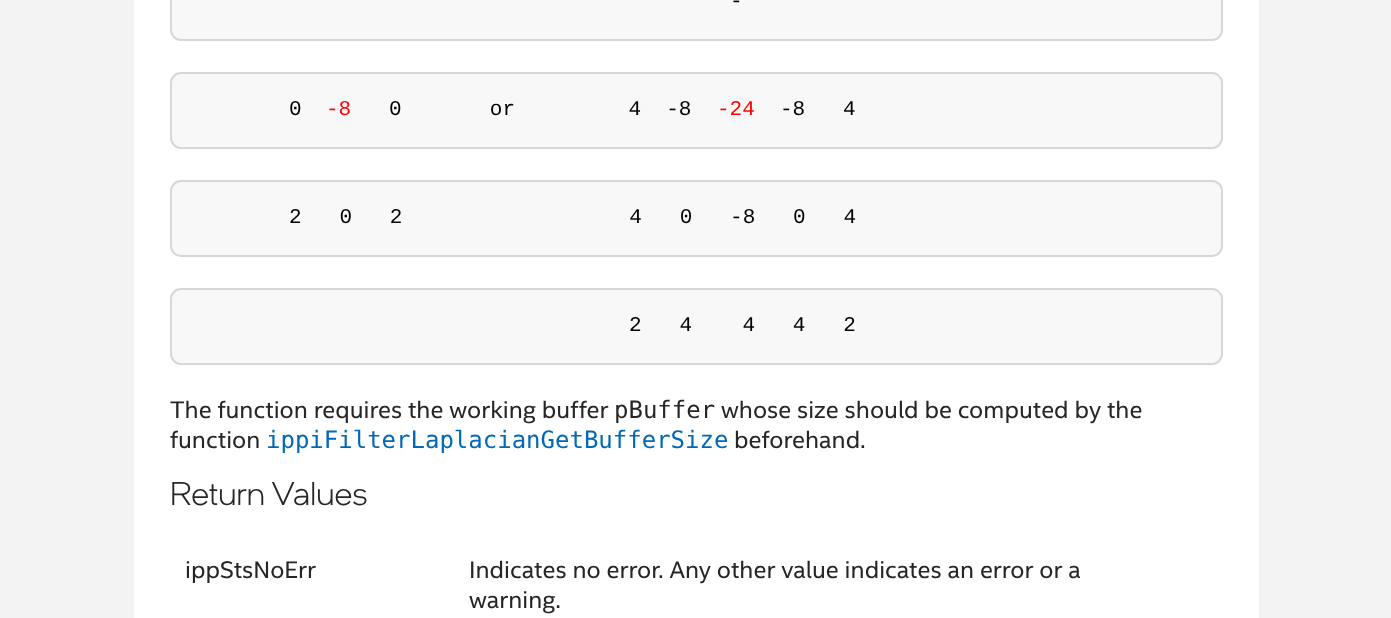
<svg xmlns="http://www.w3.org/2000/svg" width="1391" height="618">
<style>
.a{font:21px Liberation Mono;fill:#000}
.b{font:21px Liberation Mono;fill:#f00}
.c{font:24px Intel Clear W;fill:#262626}
.d{font:24px DejaVu Sans Mono;fill:#262626}
.e{font:24px DejaVu Sans Mono;fill:#0068b5}
.f{font:300 33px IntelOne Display;fill:#262626}
</style>
<rect width="100%" height="100%" fill="#f3f3f3"/>
<path fill="#fff" d="M134 0h1125v618H134z"/>
<rect fill="#f8f8f8" stroke="#d7d7d7" stroke-width="2" x="171" y="-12" width="1051" height="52" rx="10"/>
<rect fill="#f8f8f8" stroke="#d7d7d7" stroke-width="2" x="171" y="73" width="1051" height="75" rx="10"/>
<rect fill="#f8f8f8" stroke="#d7d7d7" stroke-width="2" x="171" y="181" width="1051" height="75" rx="10"/>
<rect fill="#f8f8f8" stroke="#d7d7d7" stroke-width="2" x="171" y="289" width="1051" height="75" rx="10"/>
<text class="a" x="730" y="7">-</text>
<text class="a" x="289" y="115">0</text>
<text class="b" x="326" y="115">-8</text>
<text class="a" xml:space="preserve" x="389" y="115">0       or         4  -8</text>
<text class="b" x="717" y="115">-24</text>
<text class="a" xml:space="preserve" x="780" y="115">-8   4</text>
<text class="a" xml:space="preserve" x="289" y="223">2   0   2                  4   0   -8   0   4</text>
<text class="a" xml:space="preserve" x="629" y="331">2   4    4   4   2</text>
<text class="c" x="170" y="418">The function requires the working buffer</text>
<text class="d" x="614" y="418">pBuffer</text>
<text class="c" x="721" y="418">whose size should be computed by the</text>
<text class="c" x="170" y="448">function</text>
<text class="e" x="266" y="448">ippiFilterLaplacianGetBufferSize</text>
<text class="c" x="734" y="448">beforehand.</text>
<text class="f" x="170" y="505">Return Values</text>
<text class="c" x="185" y="578">ippStsNoErr</text>
<text class="c" x="469" y="578">Indicates no error. Any other value indicates an error or a</text>
<text class="c" x="469" y="608">warning.</text>
</svg>
